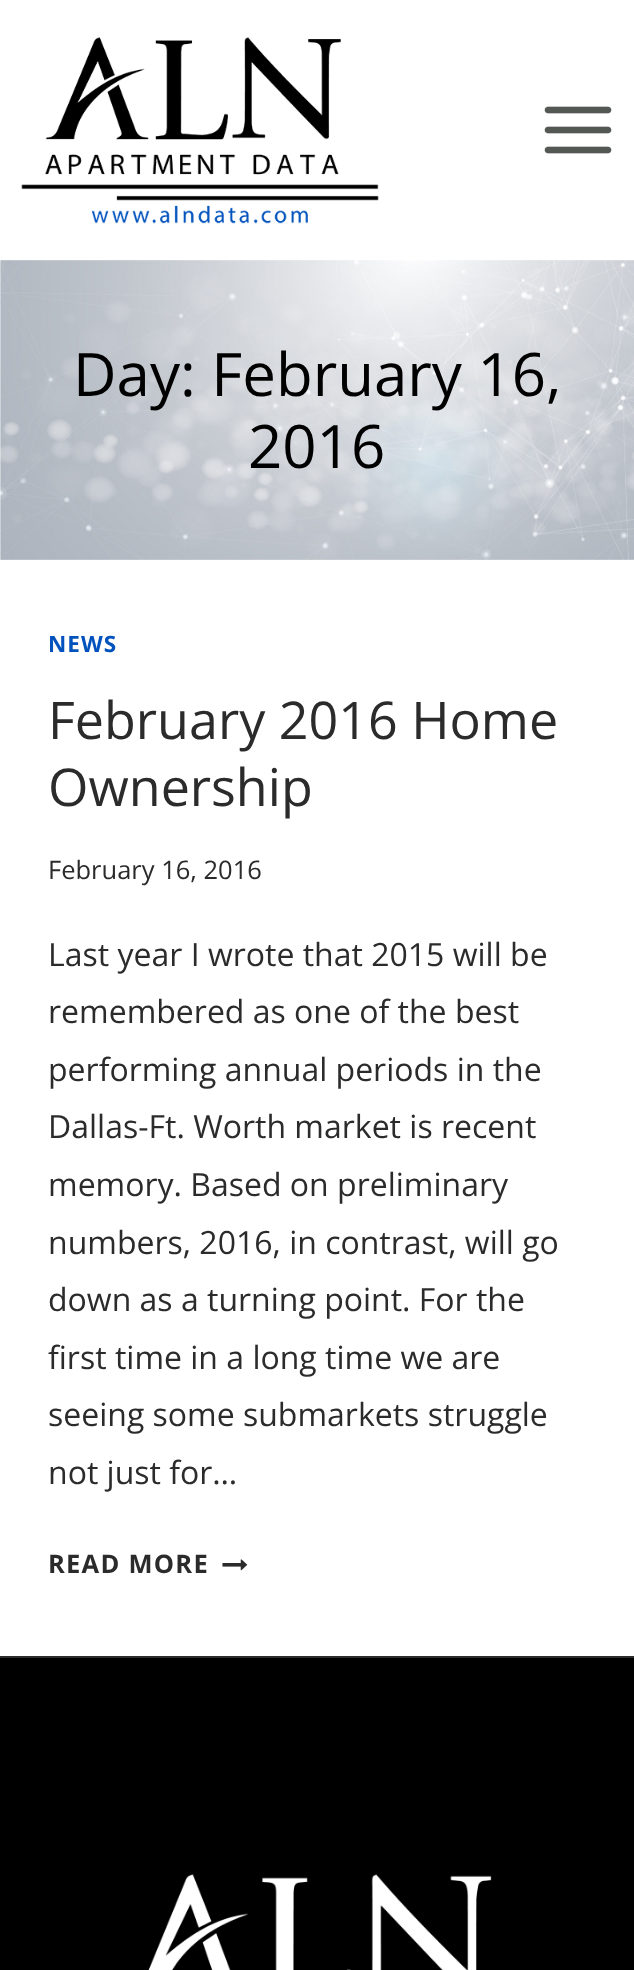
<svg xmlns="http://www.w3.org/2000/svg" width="634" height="1970">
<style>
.a{font:60px Open Sans;fill:#000}
.b{font:bold 22.5px Open Sans;letter-spacing:1px;fill:#0052bd}
.c{font:52px Open Sans;fill:#2b2b2b}
.d{font:25.5px Open Sans;fill:#2b2b2b}
.e{font:32px Open Sans;fill:#2b2b2b}
.f{font:bold 25.5px Open Sans;letter-spacing:1.25px;fill:#2b2b2b}
</style>
<rect width="100%" height="100%" fill="#fff"/>
<image href="1.png" x="21" y="37" width="358" height="187"/>
<image href="2.png" x="544" y="106" width="68" height="48"/>
<image href="3.png" x="0" y="260" width="634" height="300"/>
<image href="4.png" x="222" y="1559" width="26" height="12"/>
<path fill="#000" d="M0 1658h634v312H0z"/>
<path fill="#2b2b2b" d="M0 1656h634v2H0z"/>
<image href="5.png" x="148" y="1874" width="344" height="96"/>
<text class="a" x="73" y="396">Day: February 16,</text>
<text class="a" x="248" y="468">2016</text>
<text class="b" x="48" y="652">NEWS</text>
<text class="c" x="48" y="739">February 2016 Home</text>
<text class="c" x="48" y="806">Ownership</text>
<text class="d" x="48" y="879">February 16, 2016</text>
<text class="e" x="48" y="966">Last year I wrote that 2015 will be</text>
<text class="e" x="48" y="1023">remembered as one of the best</text>
<text class="e" x="48" y="1081">performing annual periods in the</text>
<text class="e" x="48" y="1138">Dallas-Ft. Worth market is recent</text>
<text class="e" x="48" y="1196">memory. Based on preliminary</text>
<text class="e" x="48" y="1254">numbers, 2016, in contrast, will go</text>
<text class="e" x="48" y="1311">down as a turning point. For the</text>
<text class="e" x="48" y="1369">first time in a long time we are</text>
<text class="e" x="48" y="1426">seeing some submarkets struggle</text>
<text class="e" x="48" y="1484">not just for…</text>
<text class="f" x="48" y="1573">READ MORE</text>
</svg>
